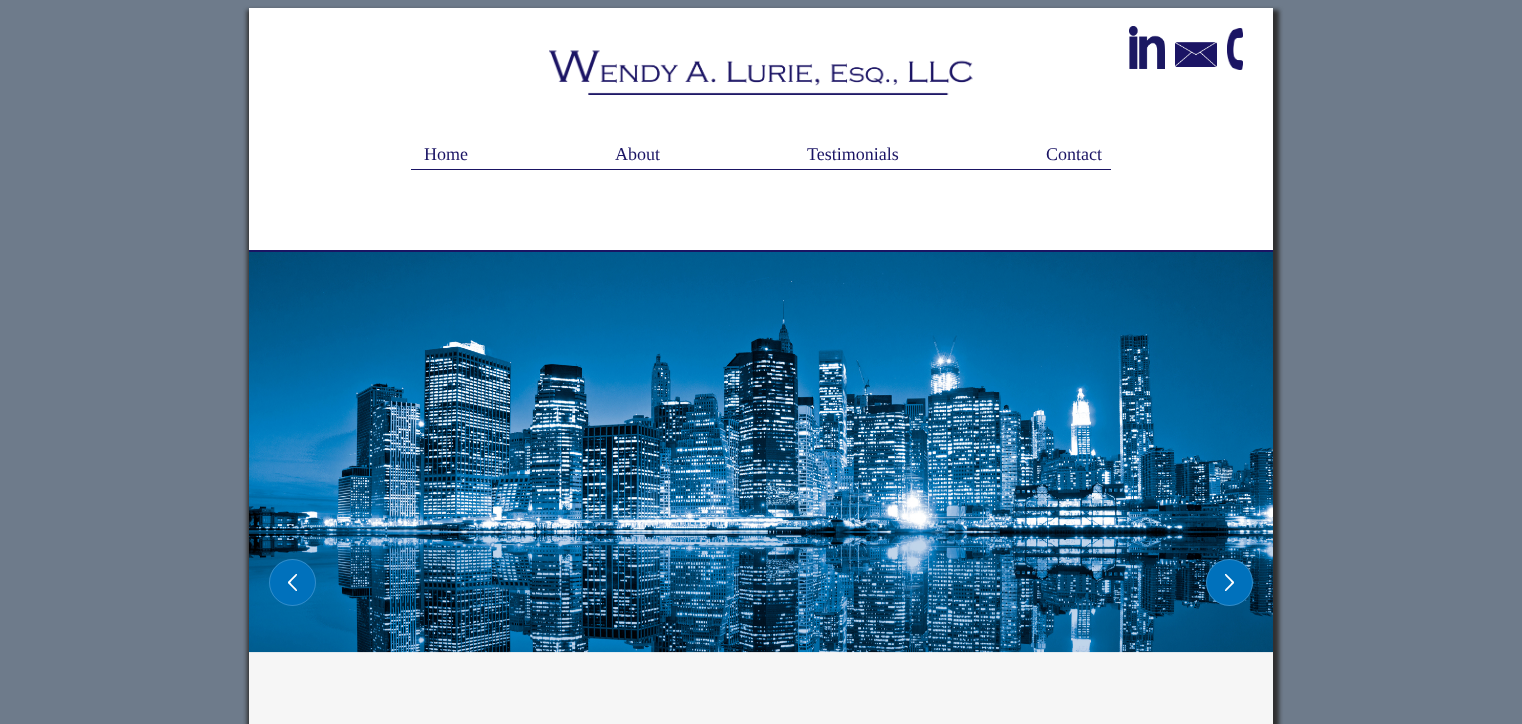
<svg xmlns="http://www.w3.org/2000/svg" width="1522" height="724">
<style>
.a{font:18px Liberation Serif;fill:#1a1464}
</style>
<rect width="100%" height="100%" fill="#6e7b8b"/>
<path fill="#303030" filter="blur(2px)" d="M247 10h1032v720H247z"/>
<path fill="#fff" d="M249 8h1024v242H249z"/>
<image href="1.png" x="549" y="50" width="424" height="45"/>
<image href="2.png" x="1129" y="26" width="36" height="43"/>
<image href="3.png" x="1175" y="42" width="42" height="25"/>
<image href="4.png" x="1227" y="28" width="16" height="42"/>
<path fill="#1a1464" d="M411 169h700v1H411z"/>
<path fill="#1a1464" d="M249 250h1024v2H249z"/>
<path fill="#f6f6f6" d="M249 652h1024v72H249z"/>
<image href="5.png" x="249" y="252" width="1024" height="401"/>
<circle fill="#0071bc" cx="292.5" cy="582.5" r="23.5"/>
<image href="6.png" x="288" y="574" width="9" height="17"/>
<circle fill="none" stroke="#ffffff33" cx="292.5" cy="582.5" r="23"/>
<circle fill="#0071bc" cx="1229.5" cy="582.5" r="23.5"/>
<image href="7.png" x="1225" y="574" width="9" height="17"/>
<circle fill="none" stroke="#ffffff33" cx="1229.5" cy="582.5" r="23"/>
<text class="a" x="424" y="160">Home</text>
<text class="a" x="615" y="160">About</text>
<text class="a" x="807" y="160">Testimonials</text>
<text class="a" x="1046" y="160">Contact</text>
</svg>
